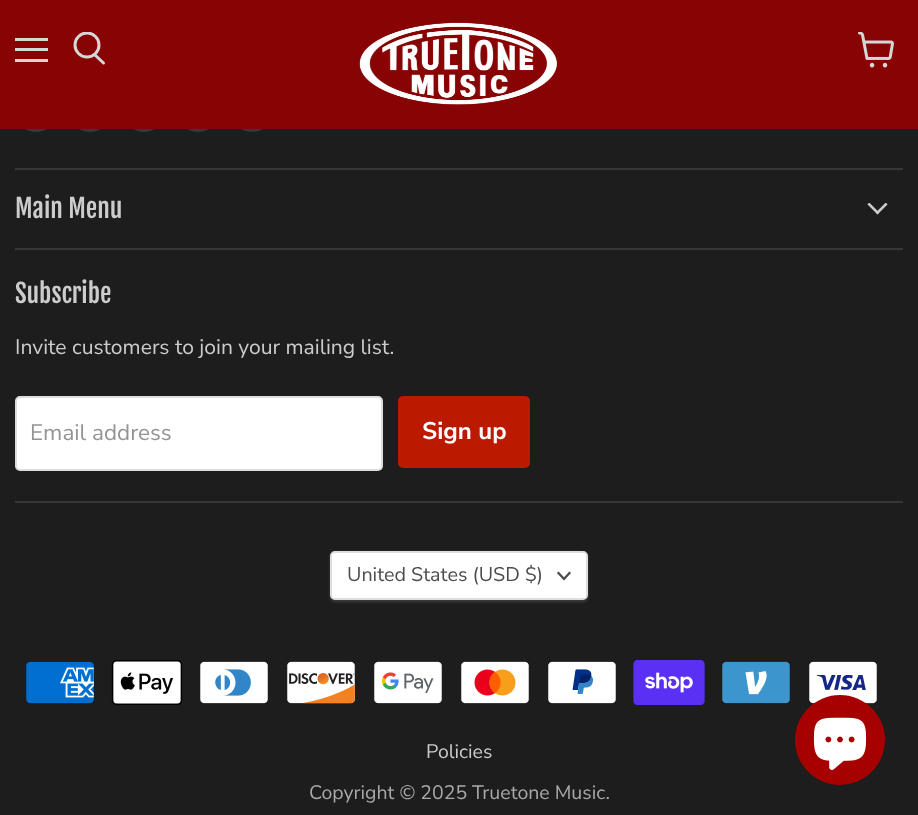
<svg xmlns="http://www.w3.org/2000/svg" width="918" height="815">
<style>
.a{font:25.5px Fjalla One;fill:#ccc}
.b{font:21.1px Nunito Sans;fill:#ccc}
.c{font:22.5px Nunito Sans;fill:#949494}
.d{font:bold 24px Nunito Sans;fill:#fff}
.e{font:19.75px Nunito Sans;fill:#4d4d4d}
.f{font:19.5px Nunito Sans;fill:#ccc}
.g{font:19.5px Nunito Sans;fill:#a9a9a9}
</style>
<defs>
<clipPath id="clip1"><path d="M72 32h35v36H72z"/></clipPath>
</defs>
<rect width="100%" height="100%" fill="#1d1d1d"/>
<circle fill="#373737" cx="36" cy="111" r="21"/>
<circle fill="#373737" cx="90" cy="111" r="21"/>
<circle fill="#373737" cx="144" cy="111" r="21"/>
<circle fill="#373737" cx="198" cy="111" r="21"/>
<circle fill="#373737" cx="252" cy="111" r="21"/>
<path fill="#880303" d="M0 0h918v129H0z"/>
<path fill="#d7d7d7" d="M15 38h33v3H15z"/>
<path fill="#d7d7d7" d="M15 48h33v3H15z"/>
<path fill="#d7d7d7" d="M15 59h33v3H15z"/>
<path fill="none" stroke="#d7d7d7" stroke-width="3" stroke-linecap="round" d="M103.5 63l-8.5-8"/>
<g clip-path="url(#clip1)">
<circle fill="none" stroke="#d7d7d7" stroke-width="3" cx="87" cy="45" r="12"/>
</g>
<image href="1.png" x="359" y="22" width="199" height="83"/>
<image href="2.png" x="858" y="32" width="36" height="36"/>
<path fill="#373737" d="M15 168h888v2H15z"/>
<path fill="#373737" d="M15 248h888v2H15z"/>
<image href="3.png" x="867" y="203" width="21" height="12"/>
<path fill="#373737" d="M15 501h888v2H15z"/>
<rect fill="#fff" stroke="#ddd" stroke-width="2" x="16" y="397" width="366" height="73" rx="4"/>
<rect fill="#bb1900" stroke="#bb1900" stroke-width="2" x="399" y="397" width="130" height="70" rx="4"/>
<rect fill="#ffffff26" filter="blur(1.5px)" x="330" y="552" width="258" height="50" rx="5"/>
<rect fill="#fff" stroke="#ddd" stroke-width="2" x="331" y="552" width="256" height="47" rx="4"/>
<path fill="none" stroke="#4d4d4d" stroke-width="2.3" stroke-linecap="square" d="M564 579l5.5-6m-5.5 6l-5.5-6"/>
<image href="4.png" x="26" y="661" width="68" height="43"/>
<image href="5.png" x="111" y="660" width="72" height="45"/>
<image href="6.png" x="200" y="661" width="68" height="43"/>
<image href="7.png" x="287" y="661" width="68" height="43"/>
<image href="8.png" x="374" y="661" width="68" height="43"/>
<image href="9.png" x="461" y="661" width="68" height="43"/>
<image href="10.png" x="548" y="661" width="68" height="43"/>
<image href="11.png" x="633" y="660" width="72" height="45"/>
<image href="12.png" x="722" y="661" width="68" height="43"/>
<image href="13.png" x="809" y="661" width="68" height="43"/>
<circle fill="#a60000" cx="840" cy="740" r="45"/>
<image href="14.png" x="813" y="717" width="54" height="53"/>
<text class="a" x="15" y="218">Main Menu</text>
<text class="a" x="15" y="303">Subscribe</text>
<text class="b" x="15" y="354">Invite customers to join your mailing list.</text>
<text class="c" x="30" y="440">Email address</text>
<text class="d" x="422" y="439">Sign up</text>
<text class="e" x="347" y="581">United States (USD $)</text>
<text class="f" x="426" y="758">Policies</text>
<text class="g" x="309" y="799">Copyright © 2025 Truetone Music.</text>
</svg>
